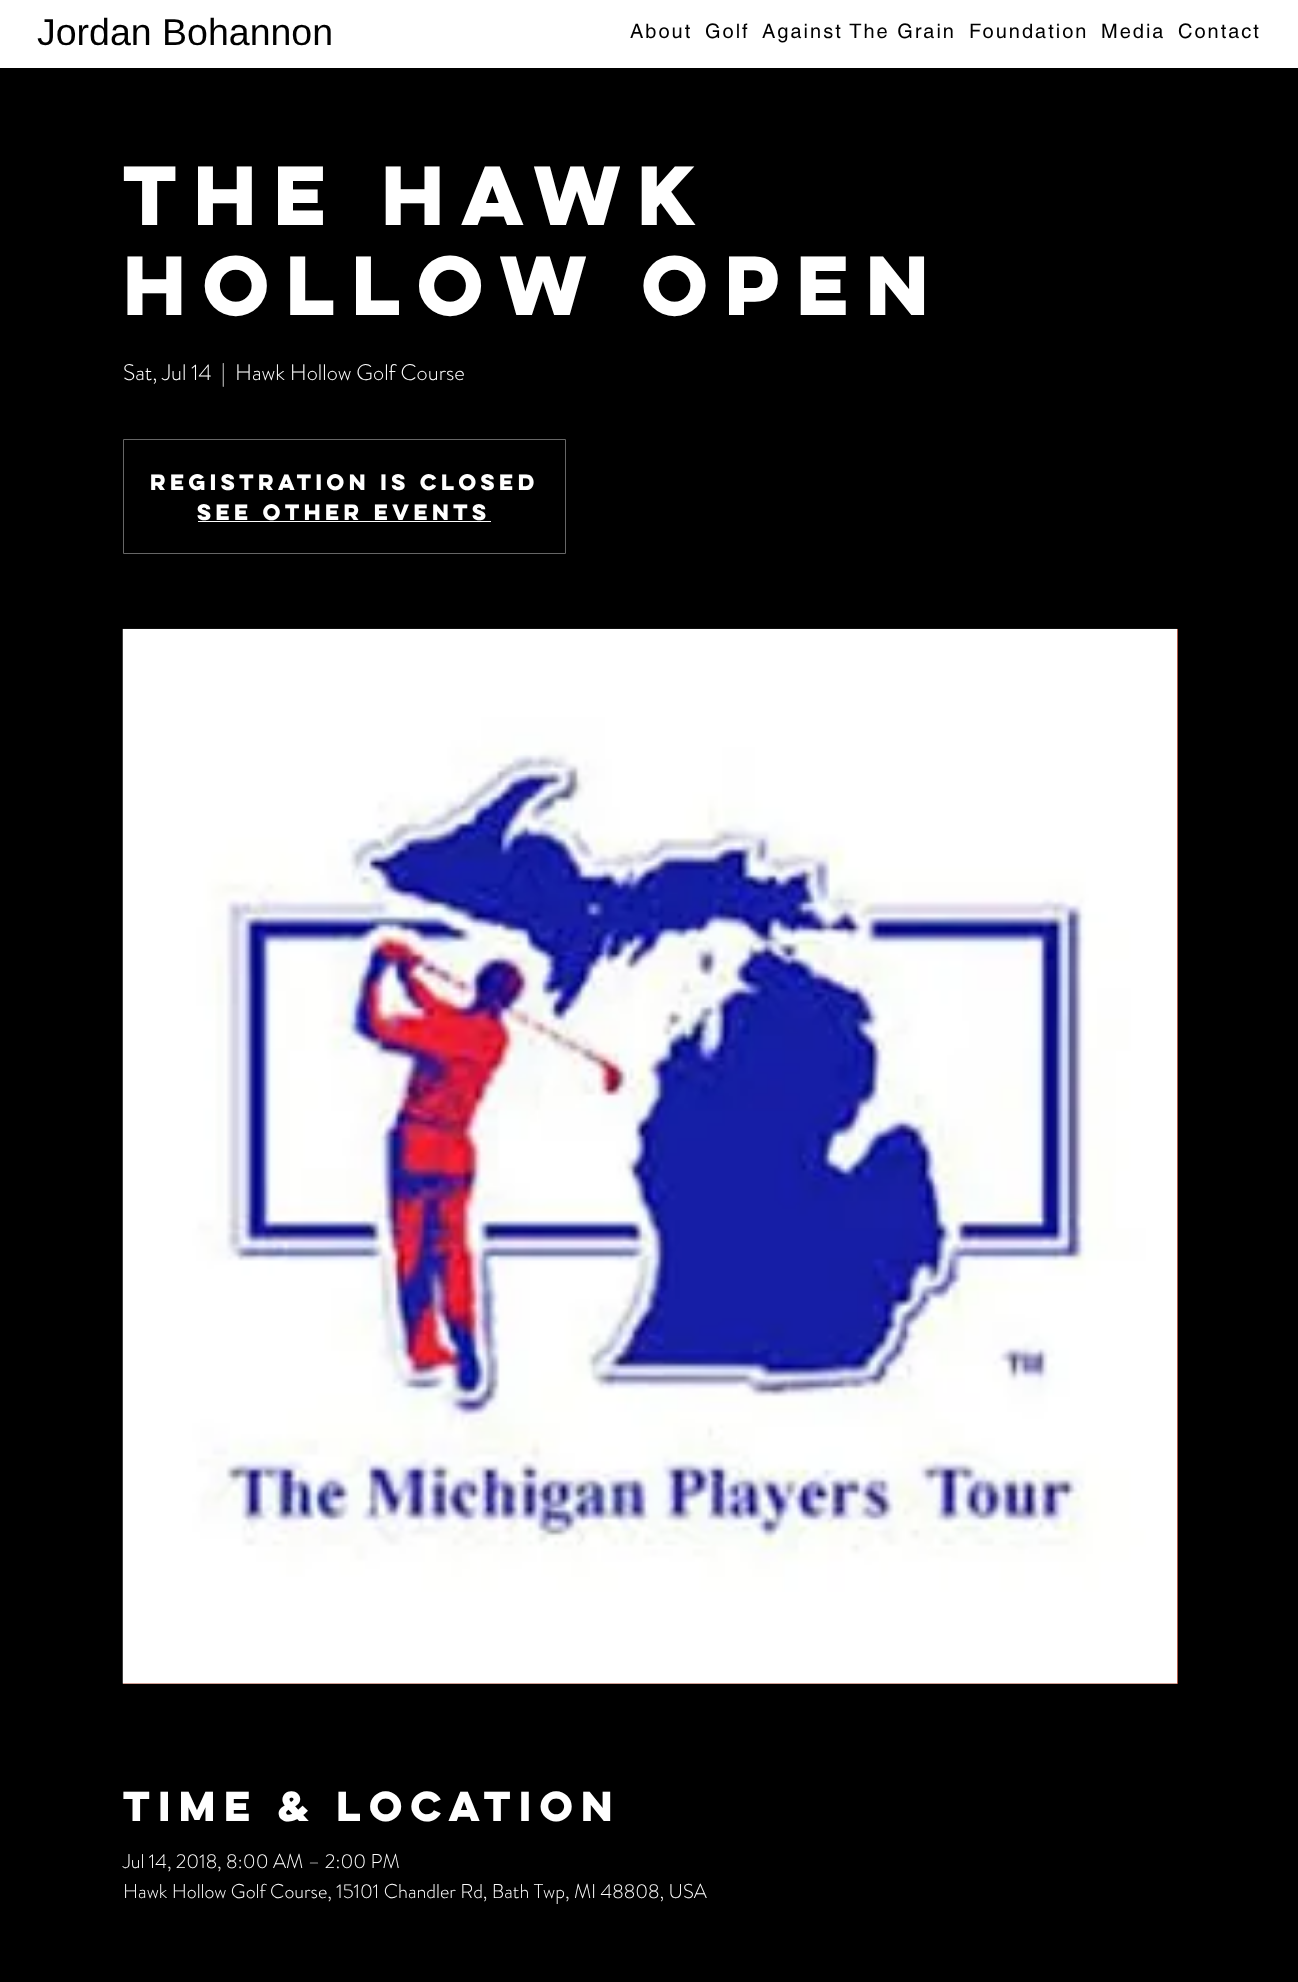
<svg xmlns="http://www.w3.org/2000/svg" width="1298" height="1982">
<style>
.a{font:37.5px Liberation Sans;fill:#000}
.b{font:20px helvetica;letter-spacing:2px;fill:#000}
.c{font:bold 75px 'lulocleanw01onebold';fill:#fff}
.d{font:300 22.5px 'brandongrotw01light';fill:#fff}
.e{font:bold 20px 'lulocleanw01onebold';fill:#fff}
.f{font:bold 37.5px 'lulocleanw01onebold';fill:#fff}
.g{font:300 20px 'brandongrotw01light';fill:#fff}
</style>
<rect width="100%" height="100%" fill="#000"/>
<path fill="#fff" d="M0 0h1298v68H0z"/>
<path fill="none" stroke="#666" d="M123.5 439.5h442v114H123.5z"/>
<path fill="#fff" d="M198 521h293v1H198z"/>
<path fill="#99230b" d="M123 629h1055v1055H123z"/>
<image href="1.png" x="122" y="628" width="1056" height="1056"/>
<text class="a" x="37" y="45">Jordan Bohannon</text>
<text class="b" x="630" y="38">About</text>
<text class="b" x="705" y="38">Golf</text>
<text class="b" x="762" y="38">Against The Grain</text>
<text class="b" x="969" y="38">Foundation</text>
<text class="b" x="1101" y="38">Media</text>
<text class="b" x="1178" y="38">Contact</text>
<text class="c" x="123" y="225">The Hawk</text>
<text class="c" x="123" y="315">Hollow Open</text>
<text class="d" x="123" y="380">Sat, Jul 14</text>
<text class="d" x="221" y="380">|</text>
<text class="d" x="235" y="380">Hawk Hollow Golf Course</text>
<text class="e" x="150" y="490">Registration is Closed</text>
<text class="e" x="197" y="520">See other events</text>
<text class="f" x="123" y="1821">Time &amp; Location</text>
<text class="g" x="123" y="1868">Jul 14, 2018, 8:00 AM – 2:00 PM</text>
<text class="g" x="123" y="1898">Hawk Hollow Golf Course, 15101 Chandler Rd, Bath Twp, MI 48808, USA</text>
</svg>
